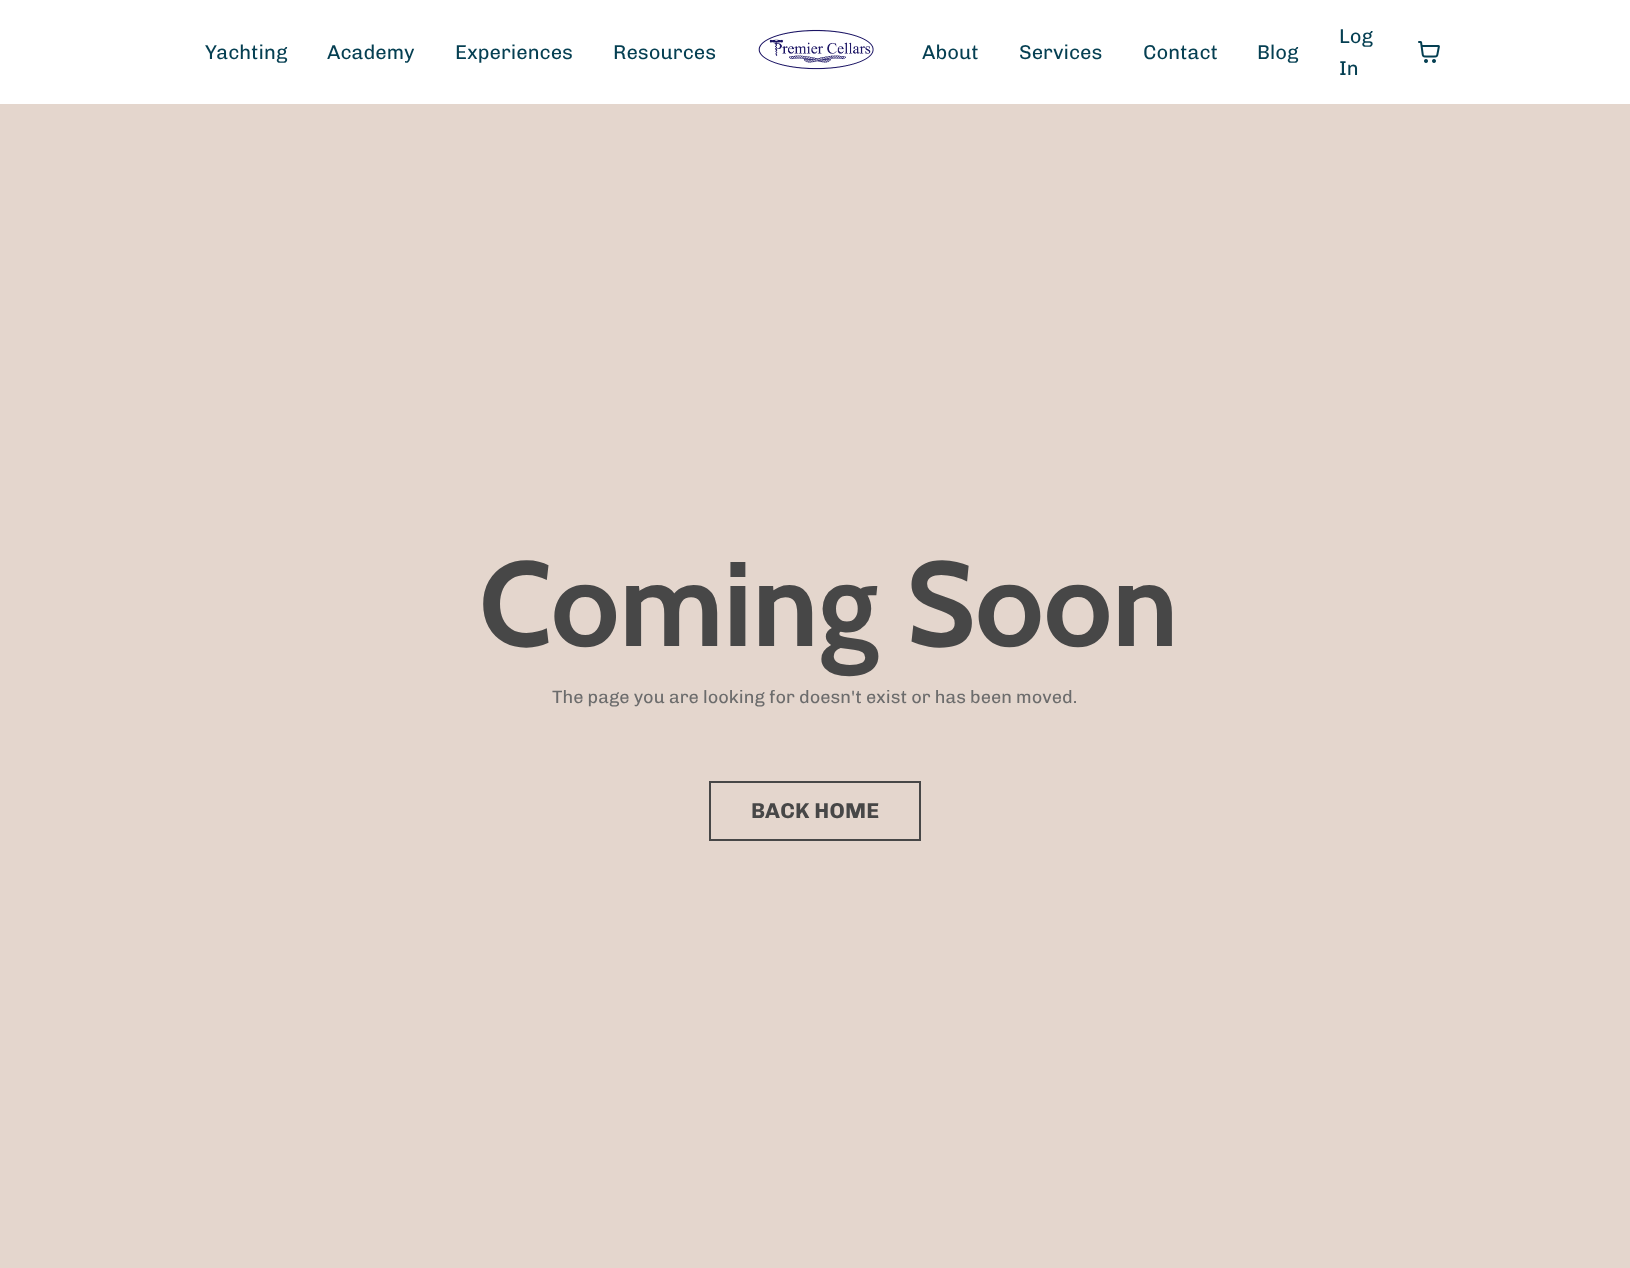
<svg xmlns="http://www.w3.org/2000/svg" width="1630" height="1268">
<style>
.a{font:20px Chivo;fill:#053f52}
.b{font:bold 120px Cabin;fill:#474747}
.c{font:18px Chivo;fill:#6c6c6c}
.d{font:bold 21.5px Chivo;letter-spacing:0.25px;fill:#474747}
</style>
<rect width="100%" height="100%" fill="#fff"/>
<image href="1.png" x="758" y="29" width="116" height="41"/>
<image href="2.png" x="1418" y="41" width="22" height="22"/>
<path fill="#e4d6cd" d="M0 104h1630v1164H0z"/>
<path fill="none" stroke="#474747" stroke-width="2" d="M710 782h210v58H710z"/>
<text class="a" x="205" y="59">Yachting</text>
<text class="a" x="327" y="59">Academy</text>
<text class="a" x="455" y="59">Experiences</text>
<text class="a" x="613" y="59">Resources</text>
<text class="a" x="922" y="59">About</text>
<text class="a" x="1019" y="59">Services</text>
<text class="a" x="1143" y="59">Contact</text>
<text class="a" x="1257" y="59">Blog</text>
<text class="a" x="1339" y="43">Log</text>
<text class="a" x="1339" y="75">In</text>
<text class="b" x="479" y="646">Coming Soon</text>
<text class="c" x="552" y="703">The page you are looking for doesn't exist or has been moved.</text>
<text class="d" x="751" y="818">BACK HOME</text>
</svg>
